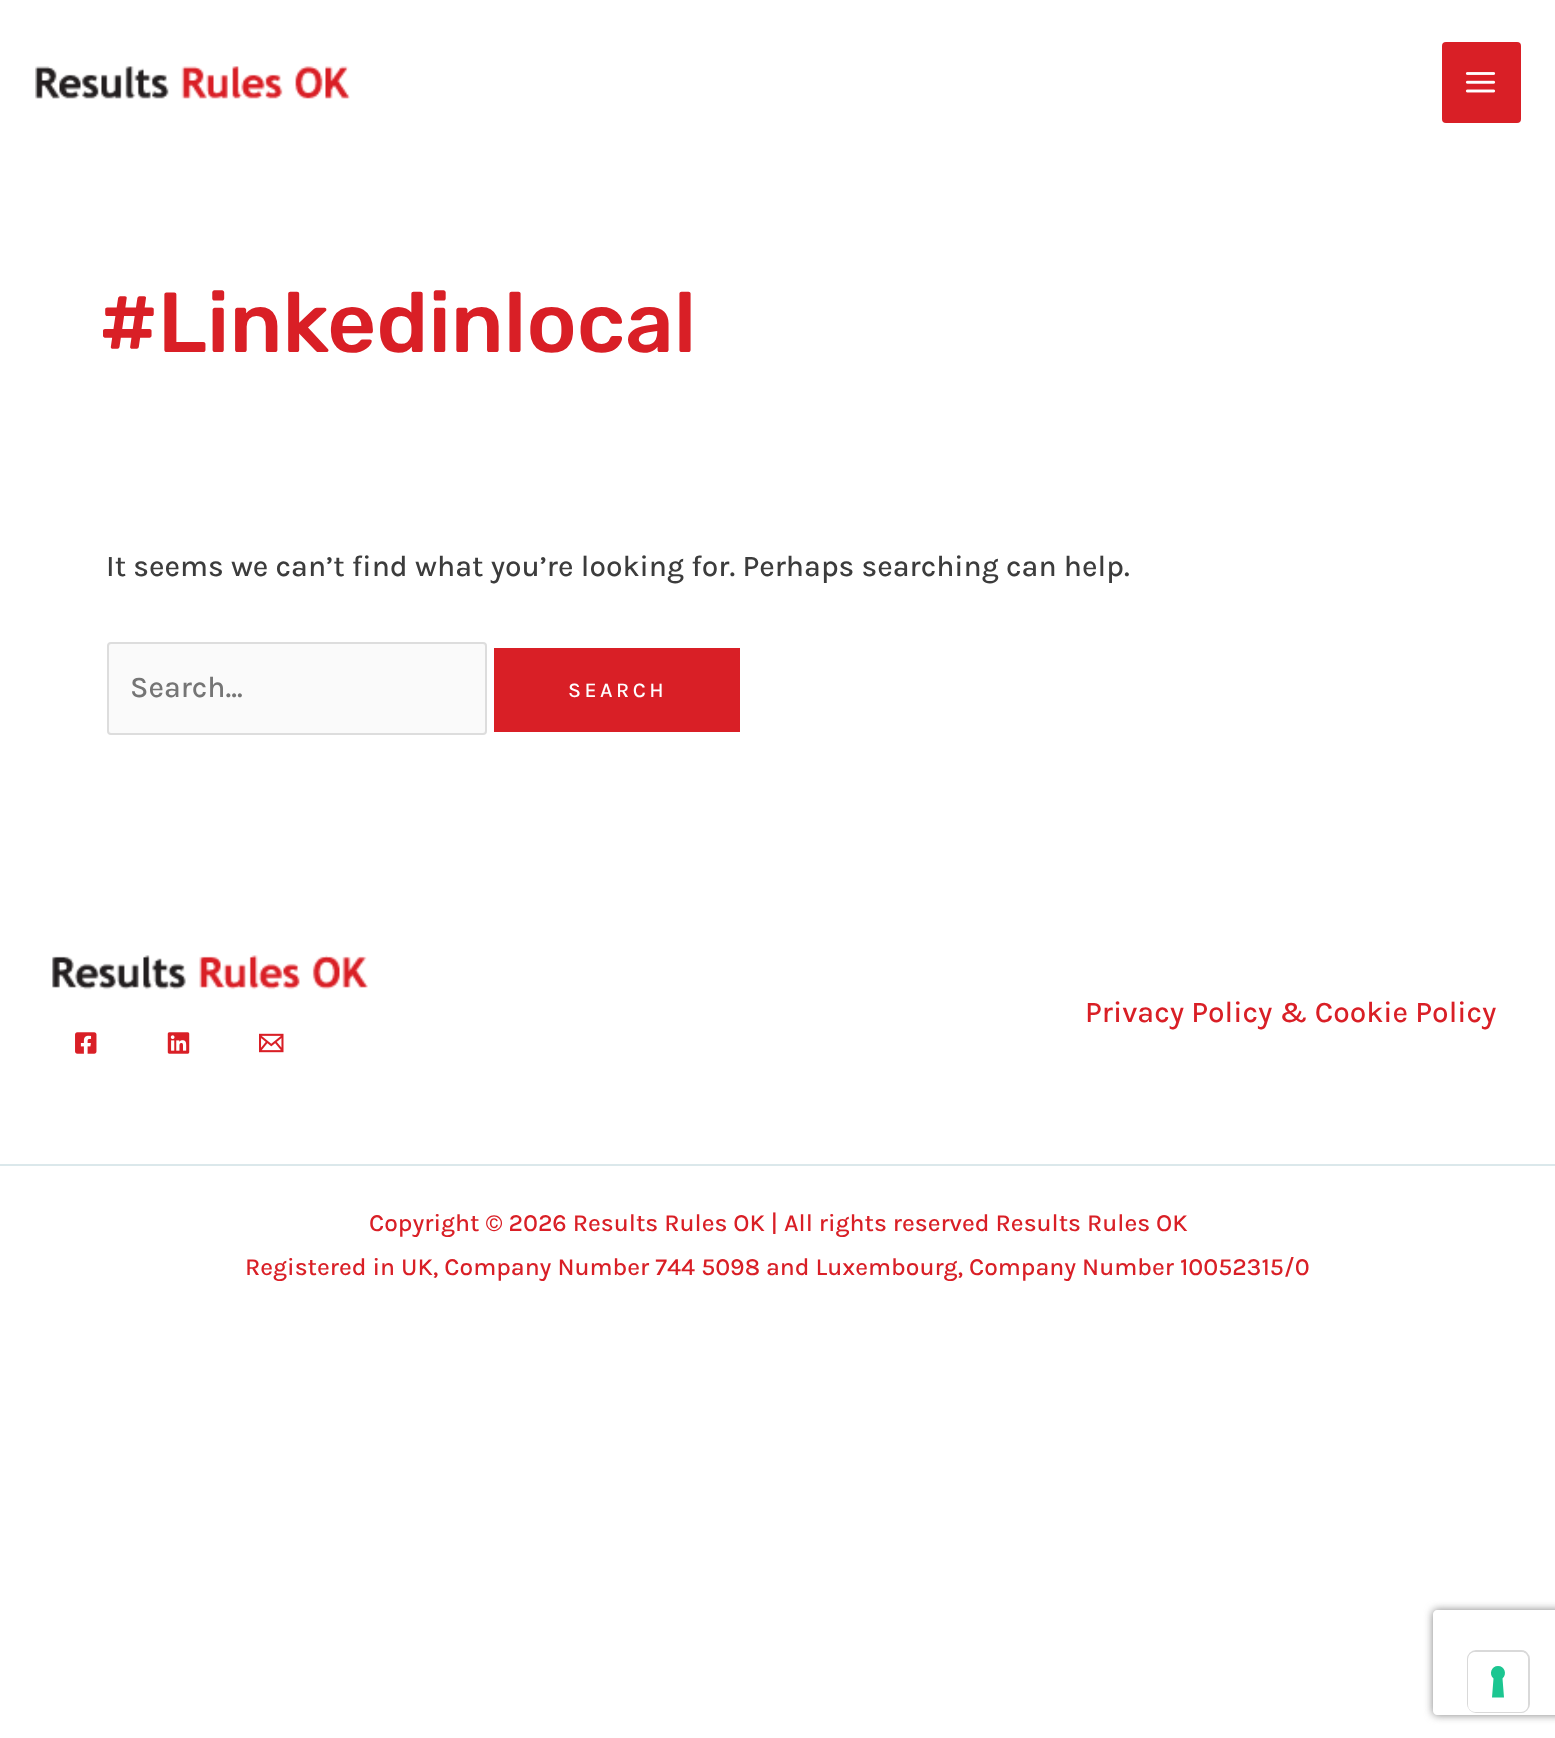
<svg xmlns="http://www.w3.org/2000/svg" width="1555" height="1738">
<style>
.a{font:300 85px Rubik;fill:#d91f26}
.b{font:500 29.75px Karla;fill:#3c3c3c}
.c{font:500 29.75px Karla;fill:#757575}
.d{font:500 21px Karla;letter-spacing:3.5px;fill:#fff}
.e{font:500 29.75px Karla;fill:#d91f26}
.f{font:500 24.5px Karla;fill:#d91f26}
</style>
<defs>
<clipPath id="clip1"><path d="M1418 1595h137v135h-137zm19 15h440c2 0 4 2 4 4v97c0 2-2 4-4 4h-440c-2 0-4-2-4-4v-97c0-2 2-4 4-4z" clip-rule="evenodd"/></clipPath>
</defs>
<rect width="100%" height="100%" fill="#fff"/>
<image href="1.png" x="35" y="66" width="315" height="33"/>
<rect fill="#d91f26" x="1442" y="42" width="79" height="81" rx="4"/>
<image href="2.png" x="1465" y="72" width="31" height="21"/>
<rect fill="#fafafa" stroke="#ddd" stroke-width="2" x="108" y="643" width="378" height="91" rx="3"/>
<path fill="#d91f26" d="M494 648h246v84H494z"/>
<image href="3.png" x="52" y="955" width="316" height="35"/>
<image href="4.png" x="75" y="1032" width="22" height="22"/>
<image href="5.png" x="167" y="1032" width="23" height="22"/>
<image href="6.png" x="259" y="1033" width="25" height="20"/>
<path fill="#dbe8eb" d="M0 1164h1555v2H0z"/>
<g clip-path="url(#clip1)">
<rect fill="#808080" filter="blur(4.5px)" x="1433" y="1610" width="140" height="105" rx="4"/>
</g>
<rect fill="none" stroke="#d9d9d9" stroke-width="2" x="1468" y="1651" width="61" height="61" rx="8"/>
<rect fill="#fff" x="1468" y="1652" width="60" height="60" rx="7"/>
<path fill="#1cc691" fill-rule="evenodd" d="M1498 1666c6.5 0 9.5 8 4.5 12.5l1.5 19h-12l1.5-19c-5-4.5-2-12.5 4.5-12.5z"/>
<text class="a" x="99" y="352">#Linkedinlocal</text>
<text class="b" x="106" y="576">It seems we can’t find what you’re looking for. Perhaps searching can help.</text>
<text class="c" x="130" y="697">Search...</text>
<text class="d" x="568" y="697">SEARCH</text>
<text class="e" x="1085" y="1022">Privacy Policy &amp; Cookie Policy</text>
<text class="f" x="369" y="1231">Copyright © 2026 Results Rules OK | All rights reserved Results Rules OK</text>
<text class="f" x="245" y="1275">Registered in UK, Company Number 744 5098 and Luxembourg, Company Number 10052315/0</text>
</svg>
